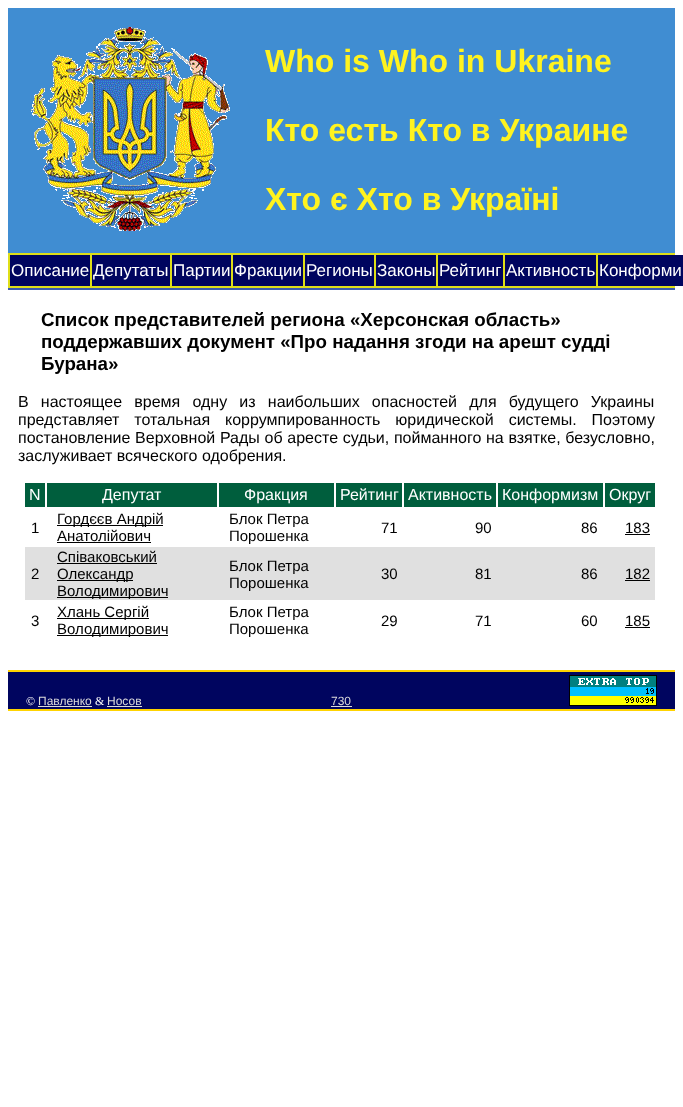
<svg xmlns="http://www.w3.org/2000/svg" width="683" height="1107">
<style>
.a{font:bold 32px Liberation Sans;fill:#fff31f}
.b{font:17px Liberation Sans;fill:#fff}
.c{font:bold 18.75px Liberation Sans;fill:#000}
.d{font:16px Liberation Sans;fill:#000}
.e{font:16px Liberation Sans;fill:#fff}
.f{font:15px Liberation Sans;fill:#000}
.g{font:12px Liberation Serif;fill:#fff}
.h{font:12px Liberation Sans;fill:#dbdbdb}
</style>
<rect width="100%" height="100%" fill="#fff"/>
<path fill="#408dd2" d="M8 8h667v245H8z"/>
<image href="1.png" x="31" y="27" width="199" height="204"/>
<path fill="#dfdf18" d="M8 253h667v35H8z"/>
<path fill="#3a5baf" d="M8 288h667v2H8z"/>
<path fill="#00055f" d="M10 255h80v31H10z"/>
<path fill="#00055f" d="M92 255h78v31H92z"/>
<path fill="#00055f" d="M172 255h59v31H172z"/>
<path fill="#00055f" d="M233 255h70v31H233z"/>
<path fill="#00055f" d="M305 255h69v31H305z"/>
<path fill="#00055f" d="M376 255h60v31H376z"/>
<path fill="#00055f" d="M438 255h65v31H438z"/>
<path fill="#00055f" d="M505 255h91v31H505z"/>
<path fill="#00055f" d="M598 255h85v31H598z"/>
<path fill="#005e3d" d="M25 483h20v24H25z"/>
<path fill="#005e3d" d="M47 483h170v24H47z"/>
<path fill="#005e3d" d="M219 483h115v24H219z"/>
<path fill="#005e3d" d="M336 483h66v24H336z"/>
<path fill="#005e3d" d="M404 483h92v24H404z"/>
<path fill="#005e3d" d="M498 483h105v24H498z"/>
<path fill="#005e3d" d="M605 483h50v24H605z"/>
<path fill="#000" d="M57 525h106v1H57z"/>
<path fill="#000" d="M57 542h94v1H57z"/>
<path fill="#000" d="M625 534h25v1H625z"/>
<path fill="#e0e0e0" d="M25 547h630v53H25z"/>
<path fill="#000" d="M57 563h100v1H57z"/>
<path fill="#000" d="M57 580h76v1H57z"/>
<path fill="#000" d="M57 597h111v1H57z"/>
<path fill="#000" d="M625 580h25v1H625z"/>
<path fill="#000" d="M57 618h92v1H57z"/>
<path fill="#000" d="M57 635h111v1H57z"/>
<path fill="#000" d="M625 627h25v1H625z"/>
<path fill="#00055f" d="M8 672h667v37H8z"/>
<path fill="#ffd300" d="M8 670h667v2H8z"/>
<path fill="#ffd300" d="M8 709h667v2H8z"/>
<path fill="#dbdbdb" d="M38 706h54v1H38z"/>
<path fill="#dbdbdb" d="M107 706h35v1H107z"/>
<path fill="#dbdbdb" d="M331 706h21v1H331z"/>
<image href="2.png" x="569" y="675" width="88" height="31"/>
<text class="a" x="265" y="72">Who is Who in Ukraine</text>
<text class="a" x="265" y="141">Кто есть Кто в Украине</text>
<text class="a" x="265" y="210">Хто є Хто в Україні</text>
<text class="b" x="11" y="276">Описание</text>
<text class="b" x="93" y="276">Депутаты</text>
<text class="b" x="173" y="276">Партии</text>
<text class="b" x="234" y="276">Фракции</text>
<text class="b" x="306" y="276">Регионы</text>
<text class="b" x="377" y="276">Законы</text>
<text class="b" x="439" y="276">Рейтинг</text>
<text class="b" x="506" y="276">Активность</text>
<text class="b" x="599" y="276">Конформи</text>
<text class="c" x="41" y="326">Список представителей региона «Херсонская область»</text>
<text class="c" x="41" y="348">поддержавших документ «Про надання згоди на арешт судді</text>
<text class="c" x="41" y="370">Бурана»</text>
<text class="d" x="18" y="407" word-spacing="7.75">В настоящее время одну из наибольших опасностей для будущего Украины</text>
<text class="d" x="18" y="425" word-spacing="10.5">представляет тотальная коррумпированность юридической системы. Поэтому</text>
<text class="d" x="18" y="443" word-spacing="0.25">постановление Верховной Рады об аресте судьи, пойманного на взятке, безусловно,</text>
<text class="d" x="18" y="461">заслуживает всяческого одобрения.</text>
<text class="e" x="29" y="500">N</text>
<text class="e" x="102" y="500">Депутат</text>
<text class="e" x="244" y="500">Фракция</text>
<text class="e" x="340" y="500">Рейтинг</text>
<text class="e" x="408" y="500">Активность</text>
<text class="e" x="502" y="500">Конформизм</text>
<text class="e" x="609" y="500">Округ</text>
<text class="f" x="31" y="533">1</text>
<text class="f" x="57" y="524">Гордєєв Андрій</text>
<text class="f" x="57" y="541">Анатолійович</text>
<text class="f" x="229" y="524">Блок Петра</text>
<text class="f" x="229" y="541">Порошенка</text>
<text class="f" x="381" y="533">71</text>
<text class="f" x="475" y="533">90</text>
<text class="f" x="581" y="533">86</text>
<text class="f" x="625" y="533">183</text>
<text class="f" x="31" y="579">2</text>
<text class="f" x="57" y="562">Співаковський</text>
<text class="f" x="57" y="579">Олександр</text>
<text class="f" x="57" y="596">Володимирович</text>
<text class="f" x="229" y="571">Блок Петра</text>
<text class="f" x="229" y="588">Порошенка</text>
<text class="f" x="381" y="579">30</text>
<text class="f" x="475" y="579">81</text>
<text class="f" x="581" y="579">86</text>
<text class="f" x="625" y="579">182</text>
<text class="f" x="31" y="626">3</text>
<text class="f" x="57" y="617">Хлань Сергій</text>
<text class="f" x="57" y="634">Володимирович</text>
<text class="f" x="229" y="617">Блок Петра</text>
<text class="f" x="229" y="634">Порошенка</text>
<text class="f" x="381" y="626">29</text>
<text class="f" x="475" y="626">71</text>
<text class="f" x="581" y="626">60</text>
<text class="f" x="625" y="626">185</text>
<text class="g" x="26" y="705">©</text>
<text class="h" x="38" y="705">Павленко</text>
<text class="g" x="95" y="705">&amp;</text>
<text class="h" x="107" y="705">Носов</text>
<text class="h" x="331" y="705">730</text>
</svg>
